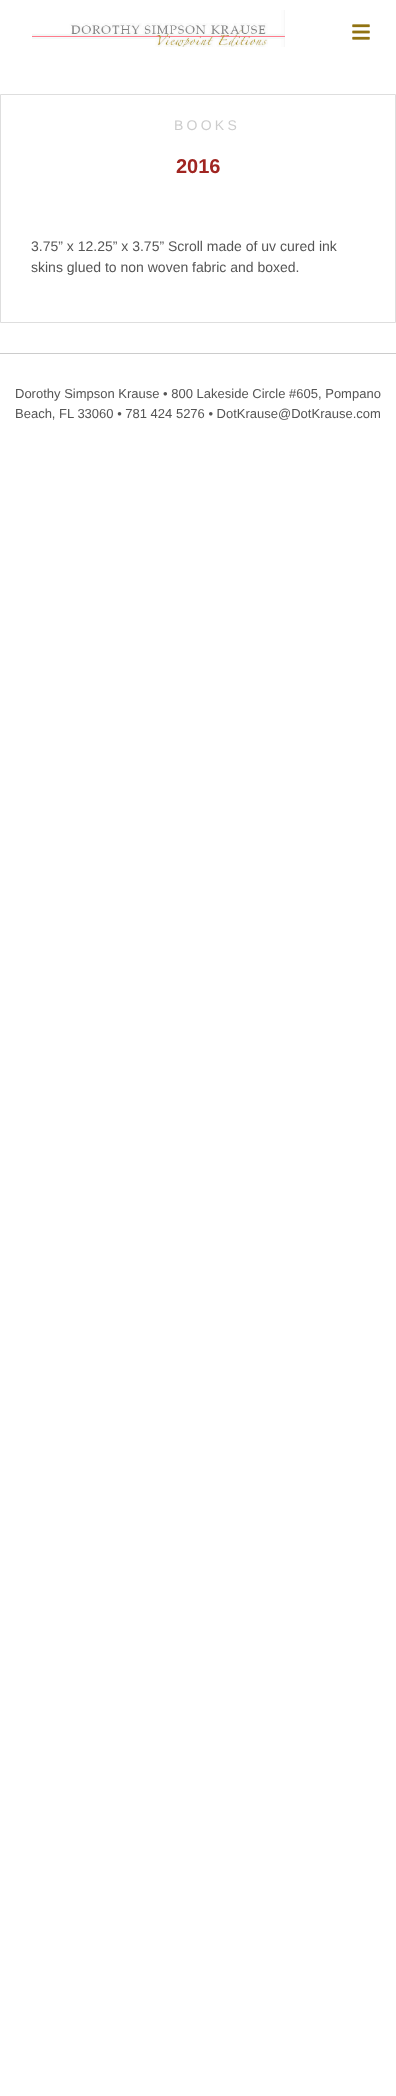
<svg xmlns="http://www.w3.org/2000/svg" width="396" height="2096">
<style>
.a{font:14px Liberation Sans;letter-spacing:3.25px;fill:#ccc}
.b{font:bold 20px Liberation Sans;fill:#a02521}
.c{font:14px Liberation Sans;fill:#555}
.d{font:13px Liberation Sans;fill:#555}
</style>
<rect width="100%" height="100%" fill="#fff"/>
<image href="1.png" x="32" y="10" width="253" height="37"/>
<image href="2.png" x="352" y="24" width="18" height="16"/>
<path fill="none" stroke="#dedede" d="M0.5 94.5h395v228H0.5z"/>
<path fill="#ccc" d="M0 353h396v1H0z"/>
<text class="a" x="174" y="130">BOOKS</text>
<text class="b" x="176" y="173">2016</text>
<text class="c" x="31" y="251">3.75” x 12.25” x 3.75” Scroll made of uv cured ink</text>
<text class="c" x="31" y="272">skins glued to non woven fabric and boxed.</text>
<text class="d" x="15" y="398">Dorothy Simpson Krause • 800 Lakeside Circle #605, Pompano</text>
<text class="d" x="15" y="418">Beach, FL 33060 • 781 424 5276 • DotKrause@DotKrause.com</text>
</svg>
